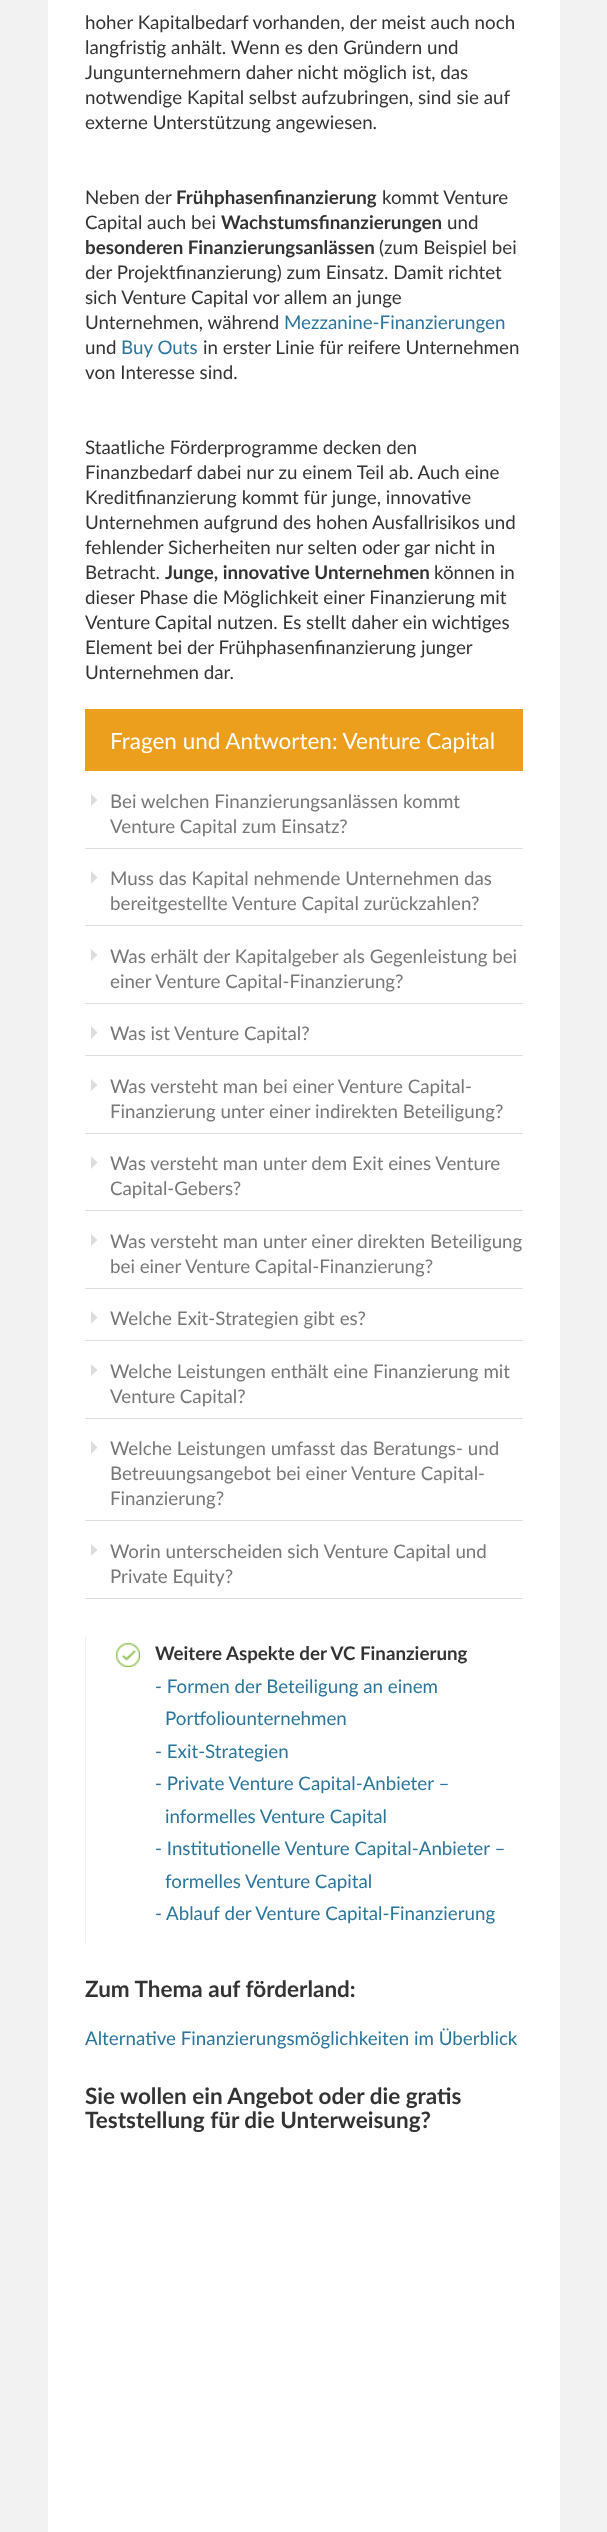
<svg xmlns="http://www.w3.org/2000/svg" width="607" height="2532">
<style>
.a{font:18.75px Lato;fill:#333}
.b{font:bold 18.75px Lato;fill:#333}
.c{font:18.75px Lato;fill:#2a759c}
.d{font:22.5px Lato;fill:#fff}
.e{font:18.75px Lato;fill:#777}
.f{font:bold 22.5px Lato;fill:#333}
</style>
<rect width="100%" height="100%" fill="#f2f2f2"/>
<path fill="#fff" d="M48 0h512v2532H48z"/>
<path fill="#ec9e1d" d="M85 709h438v62H85z"/>
<path fill="#ddd" d="M85 848h438v1H85z"/>
<path fill="#ddd" d="M91 806v-12l6.5 6z"/>
<path fill="#ddd" d="M85 925h438v1H85z"/>
<path fill="#ddd" d="M91 884v-13l6.5 6.5z"/>
<path fill="#ddd" d="M85 1003h438v1H85z"/>
<path fill="#ddd" d="M91 961v-12l6.5 6z"/>
<path fill="#ddd" d="M85 1055h438v1H85z"/>
<path fill="#ddd" d="M91 1039v-13l6.5 6.5z"/>
<path fill="#ddd" d="M85 1133h438v1H85z"/>
<path fill="#ddd" d="M91 1091v-12l6.5 6z"/>
<path fill="#ddd" d="M85 1210h438v1H85z"/>
<path fill="#ddd" d="M91 1169v-13l6.5 6.5z"/>
<path fill="#ddd" d="M85 1288h438v1H85z"/>
<path fill="#ddd" d="M91 1246v-12l6.5 6z"/>
<path fill="#ddd" d="M85 1340h438v1H85z"/>
<path fill="#ddd" d="M91 1324v-13l6.5 6.5z"/>
<path fill="#ddd" d="M85 1418h438v1H85z"/>
<path fill="#ddd" d="M91 1376v-12l6.5 6z"/>
<path fill="#ddd" d="M85 1520h438v1H85z"/>
<path fill="#ddd" d="M91 1454v-13l6.5 6.5z"/>
<path fill="#ddd" d="M85 1598h438v1H85z"/>
<path fill="#ddd" d="M91 1556v-12l6.5 6z"/>
<path fill="#eee" d="M85 1636h1v307H85z"/>
<image href="1.png" x="116" y="1643" width="24" height="24"/>
<text class="a" x="85" y="29">hoher Kapitalbedarf vorhanden, der meist auch noch</text>
<text class="a" x="85" y="54">langfristig anhält. Wenn es den Gründern und</text>
<text class="a" x="85" y="79">Jungunternehmern daher nicht möglich ist, das</text>
<text class="a" x="85" y="104">notwendige Kapital selbst aufzubringen, sind sie auf</text>
<text class="a" x="85" y="129">externe Unterstützung angewiesen.</text>
<text class="a" x="85" y="204">Neben der</text>
<text class="b" x="176" y="204">Frühphasenfinanzierung</text>
<text class="a" x="382" y="204">kommt Venture</text>
<text class="a" x="85" y="229">Capital auch bei</text>
<text class="b" x="221" y="229">Wachstumsfinanzierungen</text>
<text class="a" x="447" y="229">und</text>
<text class="b" x="85" y="254">besonderen Finanzierungsanlässen</text>
<text class="a" x="379" y="254">(zum Beispiel bei</text>
<text class="a" x="85" y="279">der Projektfinanzierung) zum Einsatz. Damit richtet</text>
<text class="a" x="85" y="304">sich Venture Capital vor allem an junge</text>
<text class="a" x="85" y="329">Unternehmen, während</text>
<text class="c" x="284" y="329">Mezzanine-Finanzierungen</text>
<text class="a" x="85" y="354">und</text>
<text class="c" x="121" y="354">Buy Outs</text>
<text class="a" x="203" y="354">in erster Linie für reifere Unternehmen</text>
<text class="a" x="85" y="379">von Interesse sind.</text>
<text class="a" x="85" y="454">Staatliche Förderprogramme decken den</text>
<text class="a" x="85" y="479">Finanzbedarf dabei nur zu einem Teil ab. Auch eine</text>
<text class="a" x="85" y="504">Kreditfinanzierung kommt für junge, innovative</text>
<text class="a" x="85" y="529">Unternehmen aufgrund des hohen Ausfallrisikos und</text>
<text class="a" x="85" y="554">fehlender Sicherheiten nur selten oder gar nicht in</text>
<text class="a" x="85" y="579">Betracht.</text>
<text class="b" x="165" y="579">Junge, innovative Unternehmen</text>
<text class="a" x="434" y="579">können in</text>
<text class="a" x="85" y="604">dieser Phase die Möglichkeit einer Finanzierung mit</text>
<text class="a" x="85" y="629">Venture Capital nutzen. Es stellt daher ein wichtiges</text>
<text class="a" x="85" y="654">Element bei der Frühphasenfinanzierung junger</text>
<text class="a" x="85" y="679">Unternehmen dar.</text>
<text class="d" x="110" y="749">Fragen und Antworten: Venture Capital</text>
<text class="e" x="110" y="808">Bei welchen Finanzierungsanlässen kommt</text>
<text class="e" x="110" y="833">Venture Capital zum Einsatz?</text>
<text class="e" x="110" y="885">Muss das Kapital nehmende Unternehmen das</text>
<text class="e" x="110" y="910">bereitgestellte Venture Capital zurückzahlen?</text>
<text class="e" x="110" y="963">Was erhält der Kapitalgeber als Gegenleistung bei</text>
<text class="e" x="110" y="988">einer Venture Capital-Finanzierung?</text>
<text class="e" x="110" y="1040">Was ist Venture Capital?</text>
<text class="e" x="110" y="1093">Was versteht man bei einer Venture Capital-</text>
<text class="e" x="110" y="1118">Finanzierung unter einer indirekten Beteiligung?</text>
<text class="e" x="110" y="1170">Was versteht man unter dem Exit eines Venture</text>
<text class="e" x="110" y="1195">Capital-Gebers?</text>
<text class="e" x="110" y="1248">Was versteht man unter einer direkten Beteiligung</text>
<text class="e" x="110" y="1273">bei einer Venture Capital-Finanzierung?</text>
<text class="e" x="110" y="1325">Welche Exit-Strategien gibt es?</text>
<text class="e" x="110" y="1378">Welche Leistungen enthält eine Finanzierung mit</text>
<text class="e" x="110" y="1403">Venture Capital?</text>
<text class="e" x="110" y="1455">Welche Leistungen umfasst das Beratungs- und</text>
<text class="e" x="110" y="1480">Betreuungsangebot bei einer Venture Capital-</text>
<text class="e" x="110" y="1505">Finanzierung?</text>
<text class="e" x="110" y="1558">Worin unterscheiden sich Venture Capital und</text>
<text class="e" x="110" y="1583">Private Equity?</text>
<text class="b" x="155" y="1660">Weitere Aspekte der VC Finanzierung</text>
<text class="c" x="155" y="1693">- Formen der Beteiligung an einem</text>
<text class="c" x="165" y="1725">Portfoliounternehmen</text>
<text class="c" x="155" y="1758">- Exit-Strategien</text>
<text class="c" x="155" y="1790">- Private Venture Capital-Anbieter –</text>
<text class="c" x="165" y="1823">informelles Venture Capital</text>
<text class="c" x="155" y="1855">- Institutionelle Venture Capital-Anbieter –</text>
<text class="c" x="165" y="1888">formelles Venture Capital</text>
<text class="c" x="155" y="1920">-</text>
<text class="c" x="166" y="1920">Ablauf der Venture Capital-Finanzierung</text>
<text class="f" x="85" y="1997">Zum Thema auf förderland:</text>
<text class="c" x="85" y="2045">Alternative Finanzierungsmöglichkeiten im Überblick</text>
<text class="f" x="85" y="2104">Sie wollen ein Angebot oder die gratis</text>
<text class="f" x="85" y="2128">Teststellung für die Unterweisung?</text>
</svg>
